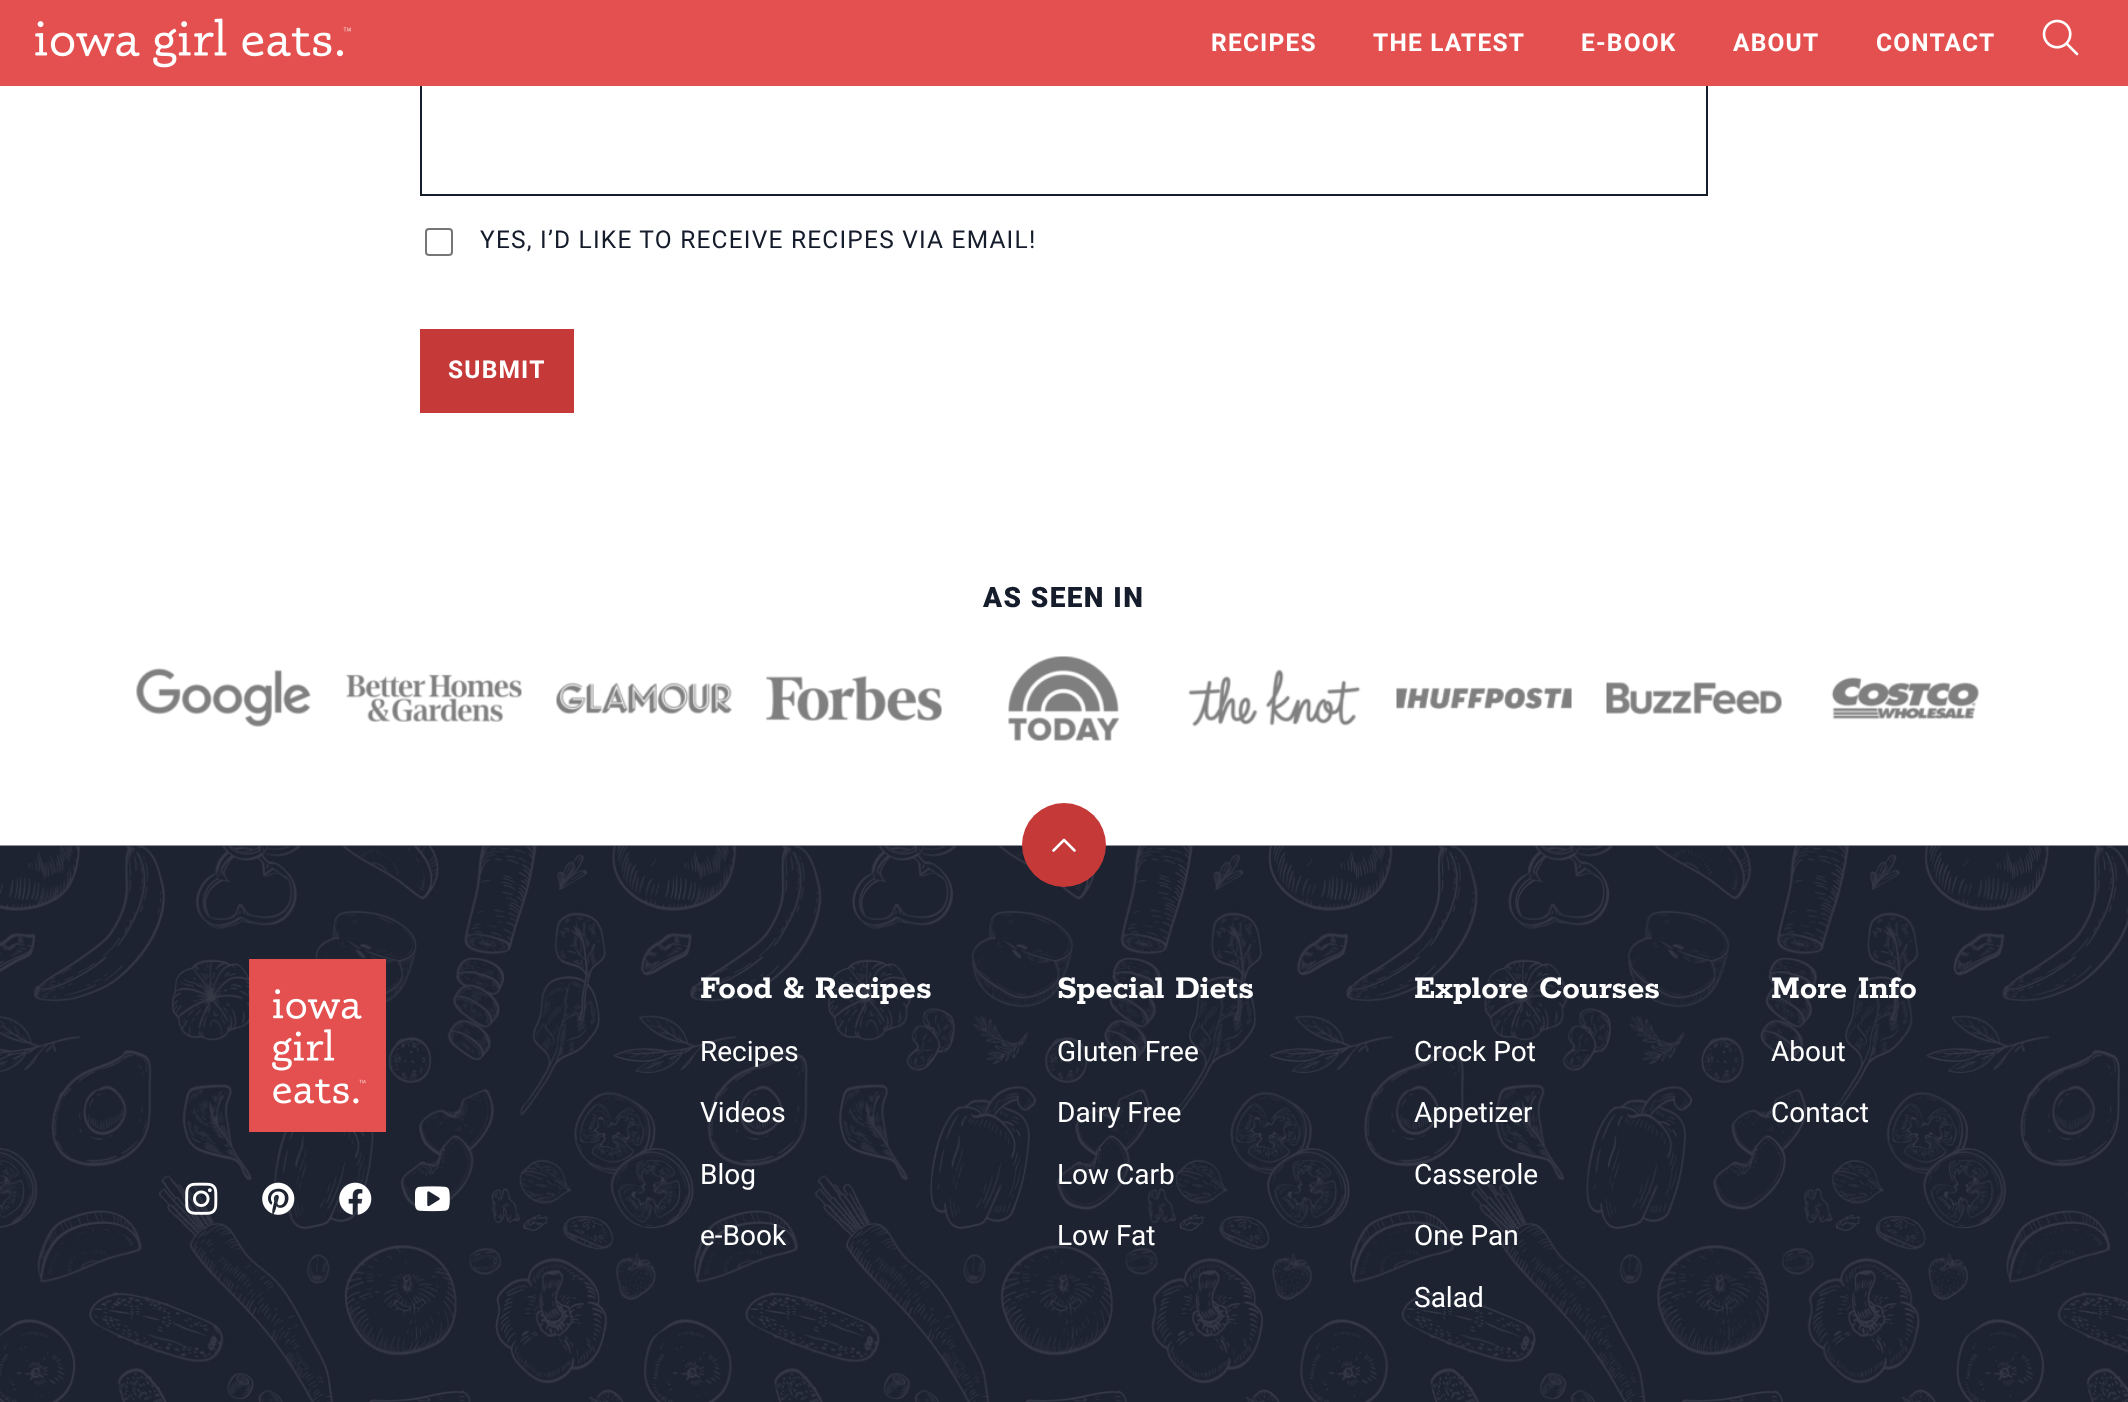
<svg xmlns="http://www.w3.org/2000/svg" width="2128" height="1402">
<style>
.a{font:bold 24.5px Roboto;letter-spacing:1.2px;fill:#fff}
.b{font:24.5px Roboto;letter-spacing:1.2px;fill:#151c2b}
.c{font:900 28px Roboto;letter-spacing:1.4px;fill:#151c2b}
.d{font:600 35px Rokkitt;fill:#fff}
.e{font:28px Roboto;fill:#fff}
</style>
<rect width="100%" height="100%" fill="#fff"/>
<path fill="none" stroke="#151c2b" stroke-width="2" d="M421 -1h1286v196H421z"/>
<path fill="#e45050" d="M0 0h2128v86H0z"/>
<image href="1.png" x="35" y="18" width="317" height="50"/>
<image href="2.png" x="2042" y="19" width="37" height="37"/>
<rect fill="none" stroke="#767676" stroke-width="2" x="426" y="229" width="26" height="26" rx="3"/>
<path fill="#c63939" d="M420 329h154v84H420z"/>
<image href="3.png" x="136" y="668" width="175" height="59"/>
<image href="4.png" x="346" y="674" width="176" height="48"/>
<image href="5.png" x="556" y="682" width="176" height="32"/>
<image href="6.png" x="766" y="675" width="176" height="46"/>
<image href="7.png" x="1008" y="656" width="112" height="85"/>
<image href="8.png" x="1188" y="669" width="173" height="58"/>
<image href="9.png" x="1396" y="687" width="176" height="23"/>
<image href="10.png" x="1606" y="682" width="176" height="33"/>
<image href="11.png" x="1831" y="677" width="148" height="43"/>
<image href="12.png" x="0" y="845" width="2128" height="557"/>
<circle fill="#c63939" cx="1064" cy="845" r="42"/>
<image href="13.png" x="1052" y="838" width="24" height="14"/>
<image href="14.png" x="249" y="959" width="137" height="173"/>
<image href="15.png" x="185" y="1182" width="33" height="33"/>
<image href="16.png" x="262" y="1182" width="33" height="33"/>
<image href="17.png" x="339" y="1182" width="33" height="33"/>
<image href="18.png" x="415" y="1186" width="35" height="26"/>
<text class="a" x="1211" y="51">RECIPES</text>
<text class="a" x="1373" y="51">THE LATEST</text>
<text class="a" x="1581" y="51">E-BOOK</text>
<text class="a" x="1733" y="51">ABOUT</text>
<text class="a" x="1876" y="51">CONTACT</text>
<text class="b" x="480" y="248">YES, I’D LIKE TO RECEIVE RECIPES VIA EMAIL!</text>
<text class="a" x="448" y="378">SUBMIT</text>
<text class="c" x="983" y="607">AS SEEN IN</text>
<text class="d" x="700" y="998">Food &amp; Recipes</text>
<text class="e" x="700" y="1061">Recipes</text>
<text class="e" x="700" y="1122">Videos</text>
<text class="e" x="700" y="1184">Blog</text>
<text class="e" x="700" y="1245">e-Book</text>
<text class="d" x="1057" y="998">Special Diets</text>
<text class="e" x="1057" y="1061">Gluten Free</text>
<text class="e" x="1057" y="1122">Dairy Free</text>
<text class="e" x="1057" y="1184">Low Carb</text>
<text class="e" x="1057" y="1245">Low Fat</text>
<text class="d" x="1414" y="998">Explore Courses</text>
<text class="e" x="1414" y="1061">Crock Pot</text>
<text class="e" x="1414" y="1122">Appetizer</text>
<text class="e" x="1414" y="1184">Casserole</text>
<text class="e" x="1414" y="1245">One Pan</text>
<text class="e" x="1414" y="1307">Salad</text>
<text class="d" x="1771" y="998">More Info</text>
<text class="e" x="1771" y="1061">About</text>
<text class="e" x="1771" y="1122">Contact</text>
</svg>
